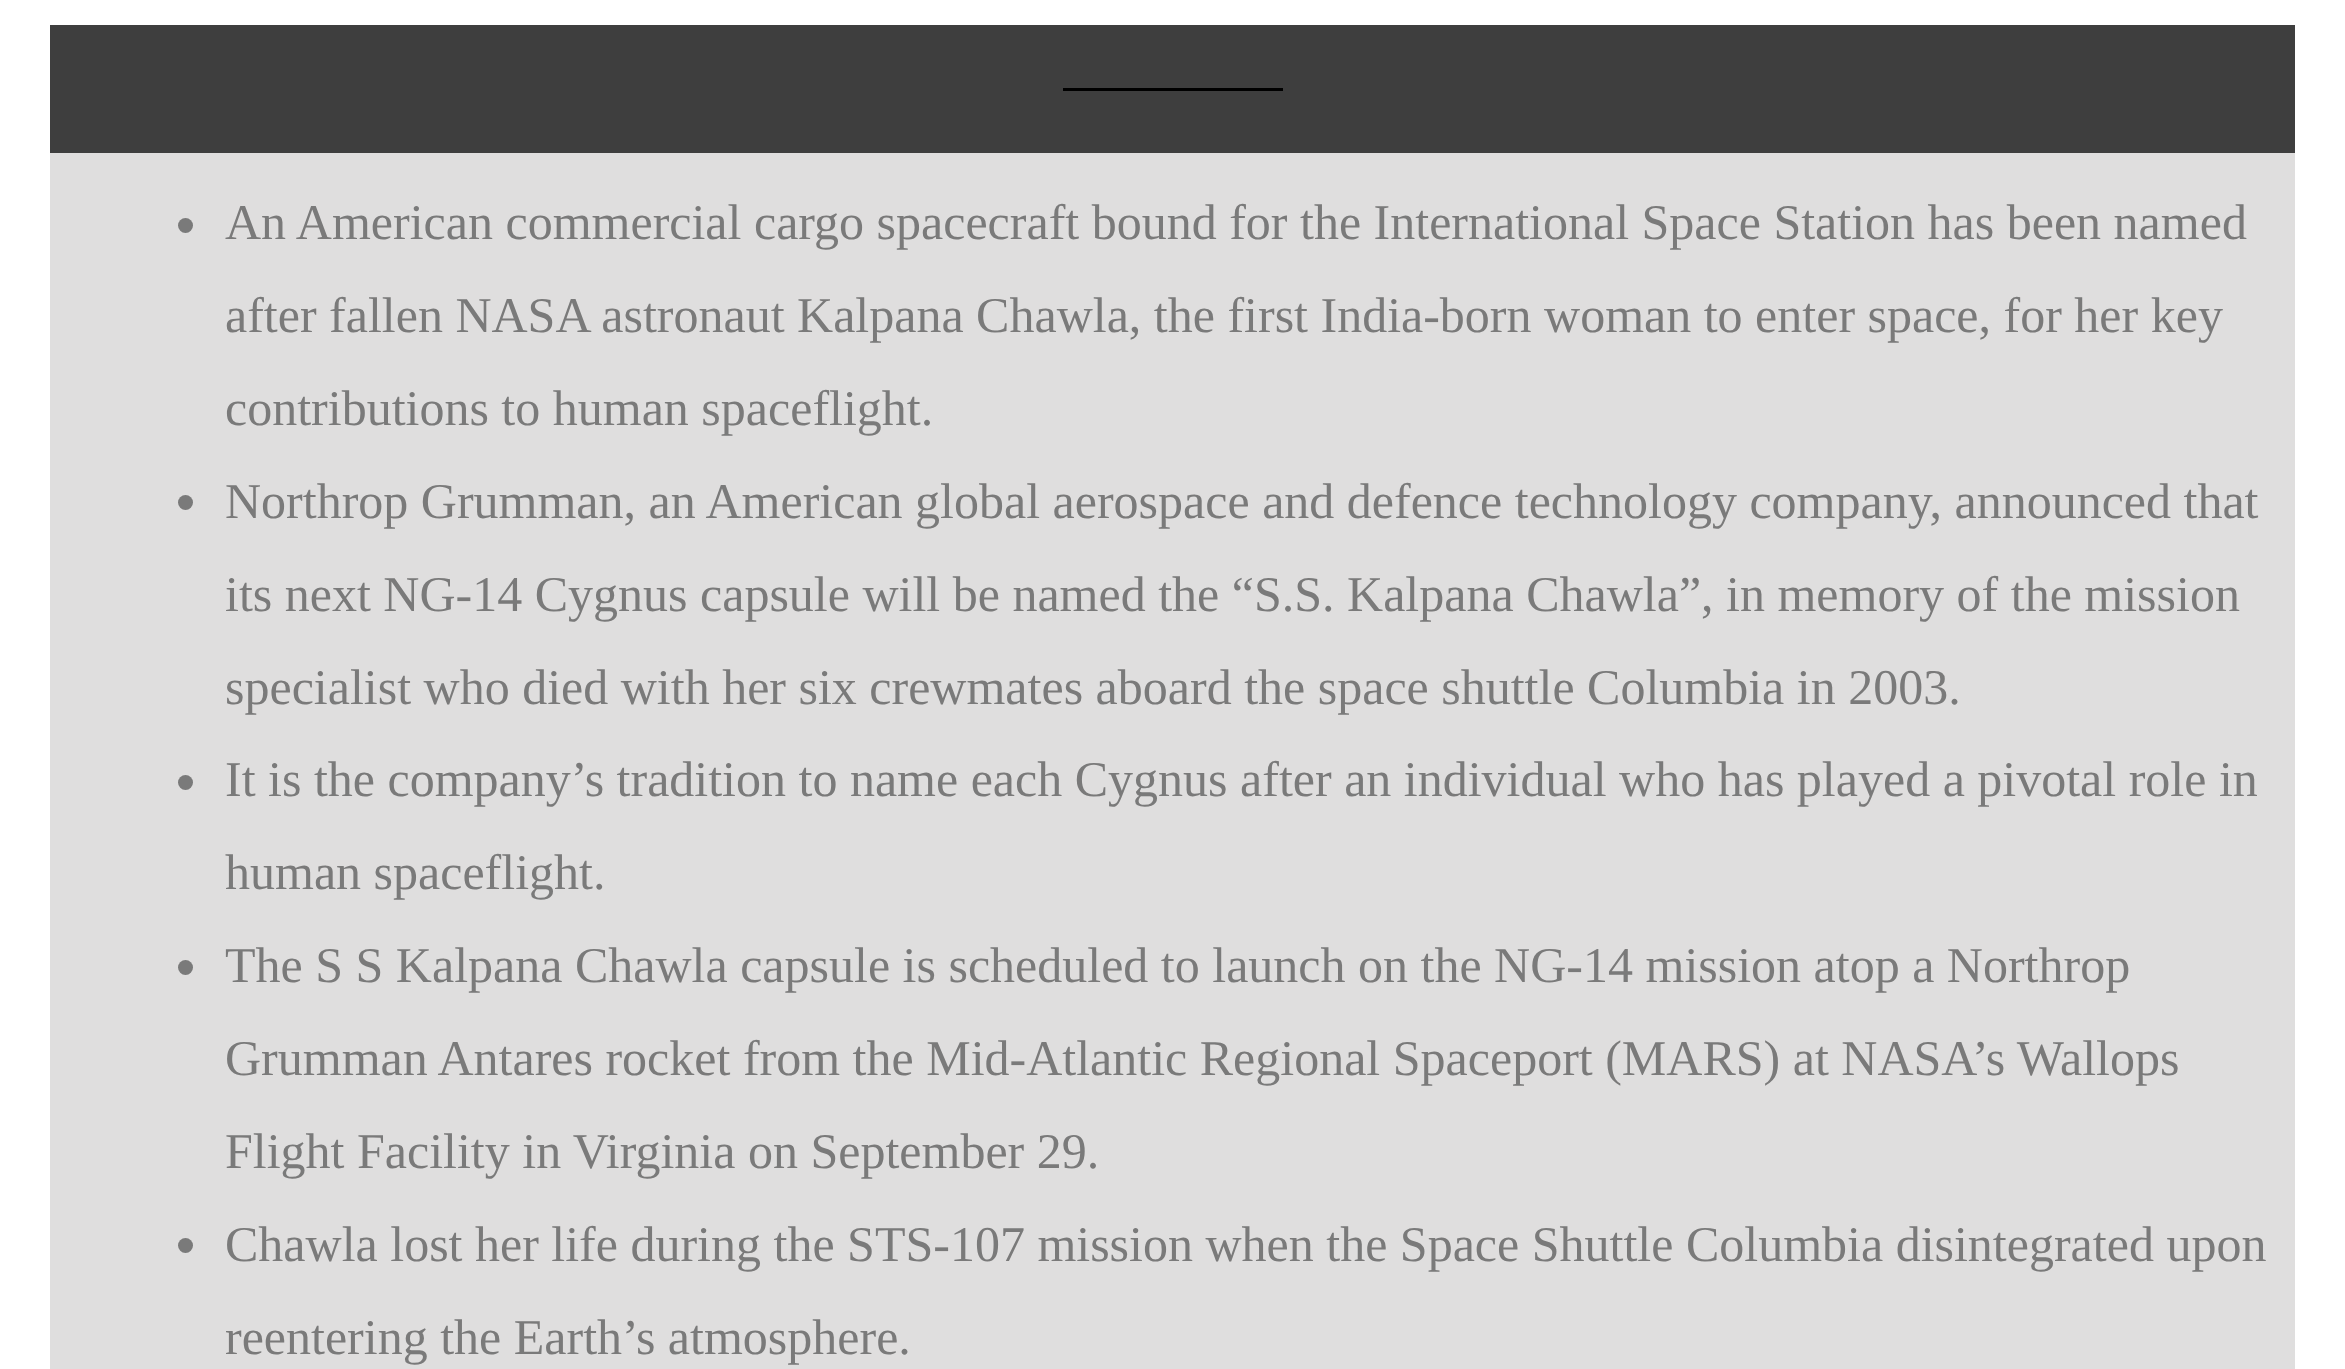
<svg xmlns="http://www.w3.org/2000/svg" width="2345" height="1369">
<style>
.a{font:50px Liberation Serif;fill:#7a7a7a}
</style>
<rect width="100%" height="100%" fill="#fff"/>
<path fill="#3e3e3e" d="M50 25h2245v128H50z"/>
<path fill="#000" d="M1063 88h220v3H1063z"/>
<path fill="#dfdede" d="M50 153h2245v1216H50z"/>
<circle fill="#7a7a7a" cx="185.5" cy="225.5" r="7.5"/>
<circle fill="#7a7a7a" cx="185.5" cy="502.5" r="7.5"/>
<circle fill="#7a7a7a" cx="185.5" cy="782.5" r="7.5"/>
<circle fill="#7a7a7a" cx="185.5" cy="967.5" r="7.5"/>
<circle fill="#7a7a7a" cx="185.5" cy="1245.5" r="7.5"/>
<text class="a" x="225" y="239">An American commercial cargo spacecraft bound for the International Space Station has been named</text>
<text class="a" x="225" y="332">after fallen NASA astronaut Kalpana Chawla, the first India-born woman to enter space, for her key</text>
<text class="a" x="225" y="425">contributions to human spaceflight.</text>
<text class="a" x="225" y="518">Northrop Grumman, an American global aerospace and defence technology company, announced that</text>
<text class="a" x="225" y="611">its next NG-14 Cygnus capsule will be named the “S.S. Kalpana Chawla”, in memory of the mission</text>
<text class="a" x="225" y="704">specialist who died with her six crewmates aboard the space shuttle Columbia in 2003.</text>
<text class="a" x="225" y="796">It is the company’s tradition to name each Cygnus after an individual who has played a pivotal role in</text>
<text class="a" x="225" y="889">human spaceflight.</text>
<text class="a" x="225" y="982">The S S Kalpana Chawla capsule is scheduled to launch on the NG-14 mission atop a Northrop</text>
<text class="a" x="225" y="1075">Grumman Antares rocket from the Mid-Atlantic Regional Spaceport (MARS) at NASA’s Wallops</text>
<text class="a" x="225" y="1168">Flight Facility in Virginia on September 29.</text>
<text class="a" x="225" y="1261">Chawla lost her life during the STS-107 mission when the Space Shuttle Columbia disintegrated upon</text>
<text class="a" x="225" y="1354">reentering the Earth’s atmosphere.</text>
</svg>
